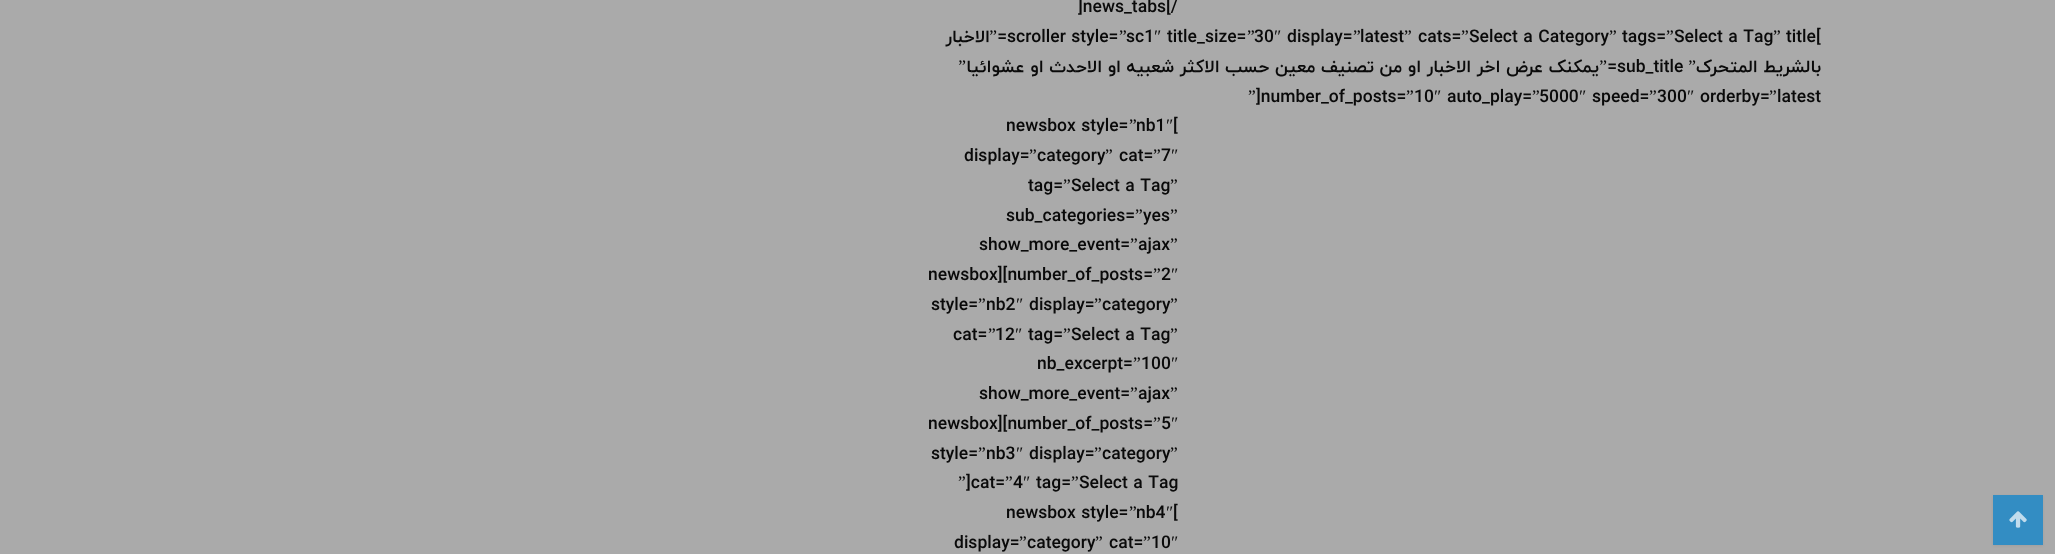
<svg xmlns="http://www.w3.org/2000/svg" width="2055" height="554">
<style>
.a{font:bold 17.5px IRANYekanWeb;fill:#0a0a0a}
.b{font:bold 17.5px IRANYekanWeb;direction:rtl;fill:#0a0a0a}
.c{font:17.5px Liberation Serif;direction:rtl;fill:#0a0a0a}
.d{font:17.5px Liberation Serif;fill:#0a0a0a}
</style>
<rect width="100%" height="100%" fill="#aaa"/>
<path fill="#33333317" filter="blur(1px)" d="M1993 496h50v50H1993z"/>
<path fill="#338dc3" d="M1993 495h50v50H1993z"/>
<image href="1.png" x="2009" y="511" width="18" height="17"/>
<text class="a" x="1078" y="12">]news_tabs[/</text>
<text class="b" x="990" y="42">الاخبار</text>
<text class="c" x="997" y="42">”</text>
<text class="a" x="1007" y="42">scroller style=</text>
<text class="d" x="1119" y="42">”</text>
<text class="a" x="1126" y="42">sc1</text>
<text class="d" x="1154" y="42">″</text>
<text class="a" x="1167" y="42">title_size=</text>
<text class="d" x="1247" y="42">”</text>
<text class="a" x="1254" y="42">30</text>
<text class="d" x="1274" y="42">″</text>
<text class="a" x="1287" y="42">display=</text>
<text class="d" x="1353" y="42">”</text>
<text class="a" x="1360" y="42">latest</text>
<text class="d" x="1404" y="42">”</text>
<text class="a" x="1418" y="42">cats=</text>
<text class="d" x="1461" y="42">”</text>
<text class="a" x="1469" y="42">Select a Category</text>
<text class="d" x="1609" y="42">”</text>
<text class="a" x="1622" y="42">tags=</text>
<text class="d" x="1666" y="42">”</text>
<text class="a" x="1674" y="42">Select a Tag</text>
<text class="d" x="1773" y="42">”</text>
<text class="a" x="1786" y="42">title[</text>
<text class="b" x="1007" y="42">=</text>
<text class="c" x="966" y="72">”</text>
<text class="b" x="1599" y="72">یمکنک عرض اخر الاخبار او من تصنیف معین حسب الاکثر شعبیه او الاحدث او عشوائیا</text>
<text class="c" x="1607" y="72">”</text>
<text class="a" x="1617" y="72">sub_title</text>
<text class="c" x="1696" y="72">”</text>
<text class="b" x="1821" y="72">بالشریط المتحرک</text>
<text class="b" x="1617" y="72">=</text>
<text class="d" x="1248" y="102">”</text>
<text class="a" x="1256" y="102">]number_of_posts=</text>
<text class="d" x="1406" y="102">”</text>
<text class="a" x="1414" y="102">10</text>
<text class="d" x="1434" y="102">″</text>
<text class="a" x="1447" y="102">auto_play=</text>
<text class="d" x="1532" y="102">”</text>
<text class="a" x="1539" y="102">5000</text>
<text class="d" x="1579" y="102">″</text>
<text class="a" x="1592" y="102">speed=</text>
<text class="d" x="1649" y="102">”</text>
<text class="a" x="1657" y="102">300</text>
<text class="d" x="1687" y="102">″</text>
<text class="a" x="1700" y="102">orderby=</text>
<text class="d" x="1769" y="102">”</text>
<text class="a" x="1777" y="102">latest</text>
<text class="a" x="1006" y="131">newsbox style=</text>
<text class="d" x="1129" y="131">”</text>
<text class="a" x="1136" y="131">nb1</text>
<text class="d" x="1166" y="131">″</text>
<text class="a" x="1173" y="131">[</text>
<text class="a" x="964" y="161">display=</text>
<text class="d" x="1029" y="161">”</text>
<text class="a" x="1037" y="161">category</text>
<text class="d" x="1105" y="161">”</text>
<text class="a" x="1119" y="161">cat=</text>
<text class="d" x="1153" y="161">”</text>
<text class="a" x="1161" y="161">7</text>
<text class="d" x="1171" y="161">″</text>
<text class="a" x="1028" y="191">tag=</text>
<text class="d" x="1063" y="191">”</text>
<text class="a" x="1071" y="191">Select a Tag</text>
<text class="d" x="1170" y="191">”</text>
<text class="a" x="1006" y="221">sub_categories=</text>
<text class="d" x="1135" y="221">”</text>
<text class="a" x="1143" y="221">yes</text>
<text class="d" x="1170" y="221">”</text>
<text class="a" x="979" y="250">show_more_event=</text>
<text class="d" x="1130" y="250">”</text>
<text class="a" x="1138" y="250">ajax</text>
<text class="d" x="1170" y="250">”</text>
<text class="a" x="928" y="280">newsbox][number_of_posts=</text>
<text class="d" x="1153" y="280">”</text>
<text class="a" x="1161" y="280">2</text>
<text class="d" x="1171" y="280">″</text>
<text class="a" x="931" y="310">style=</text>
<text class="d" x="978" y="310">”</text>
<text class="a" x="986" y="310">nb2</text>
<text class="d" x="1016" y="310">″</text>
<text class="a" x="1029" y="310">display=</text>
<text class="d" x="1094" y="310">”</text>
<text class="a" x="1102" y="310">category</text>
<text class="d" x="1170" y="310">”</text>
<text class="a" x="953" y="340">cat=</text>
<text class="d" x="988" y="340">”</text>
<text class="a" x="995" y="340">12</text>
<text class="d" x="1015" y="340">″</text>
<text class="a" x="1028" y="340">tag=</text>
<text class="d" x="1063" y="340">”</text>
<text class="a" x="1071" y="340">Select a Tag</text>
<text class="d" x="1170" y="340">”</text>
<text class="a" x="1037" y="369">nb_excerpt=</text>
<text class="d" x="1133" y="369">”</text>
<text class="a" x="1141" y="369">100</text>
<text class="d" x="1171" y="369">″</text>
<text class="a" x="979" y="399">show_more_event=</text>
<text class="d" x="1130" y="399">”</text>
<text class="a" x="1138" y="399">ajax</text>
<text class="d" x="1170" y="399">”</text>
<text class="a" x="928" y="429">newsbox][number_of_posts=</text>
<text class="d" x="1153" y="429">”</text>
<text class="a" x="1161" y="429">5</text>
<text class="d" x="1171" y="429">″</text>
<text class="a" x="931" y="459">style=</text>
<text class="d" x="978" y="459">”</text>
<text class="a" x="986" y="459">nb3</text>
<text class="d" x="1016" y="459">″</text>
<text class="a" x="1029" y="459">display=</text>
<text class="d" x="1094" y="459">”</text>
<text class="a" x="1102" y="459">category</text>
<text class="d" x="1170" y="459">”</text>
<text class="d" x="958" y="488">”</text>
<text class="a" x="966" y="488">]cat=</text>
<text class="d" x="1005" y="488">”</text>
<text class="a" x="1013" y="488">4</text>
<text class="d" x="1023" y="488">″</text>
<text class="a" x="1036" y="488">tag=</text>
<text class="d" x="1071" y="488">”</text>
<text class="a" x="1079" y="488">Select a Tag</text>
<text class="a" x="1006" y="518">newsbox style=</text>
<text class="d" x="1129" y="518">”</text>
<text class="a" x="1136" y="518">nb4</text>
<text class="d" x="1166" y="518">″</text>
<text class="a" x="1173" y="518">[</text>
<text class="a" x="954" y="548">display=</text>
<text class="d" x="1019" y="548">”</text>
<text class="a" x="1027" y="548">category</text>
<text class="d" x="1095" y="548">”</text>
<text class="a" x="1109" y="548">cat=</text>
<text class="d" x="1143" y="548">”</text>
<text class="a" x="1151" y="548">10</text>
<text class="d" x="1171" y="548">″</text>
</svg>
